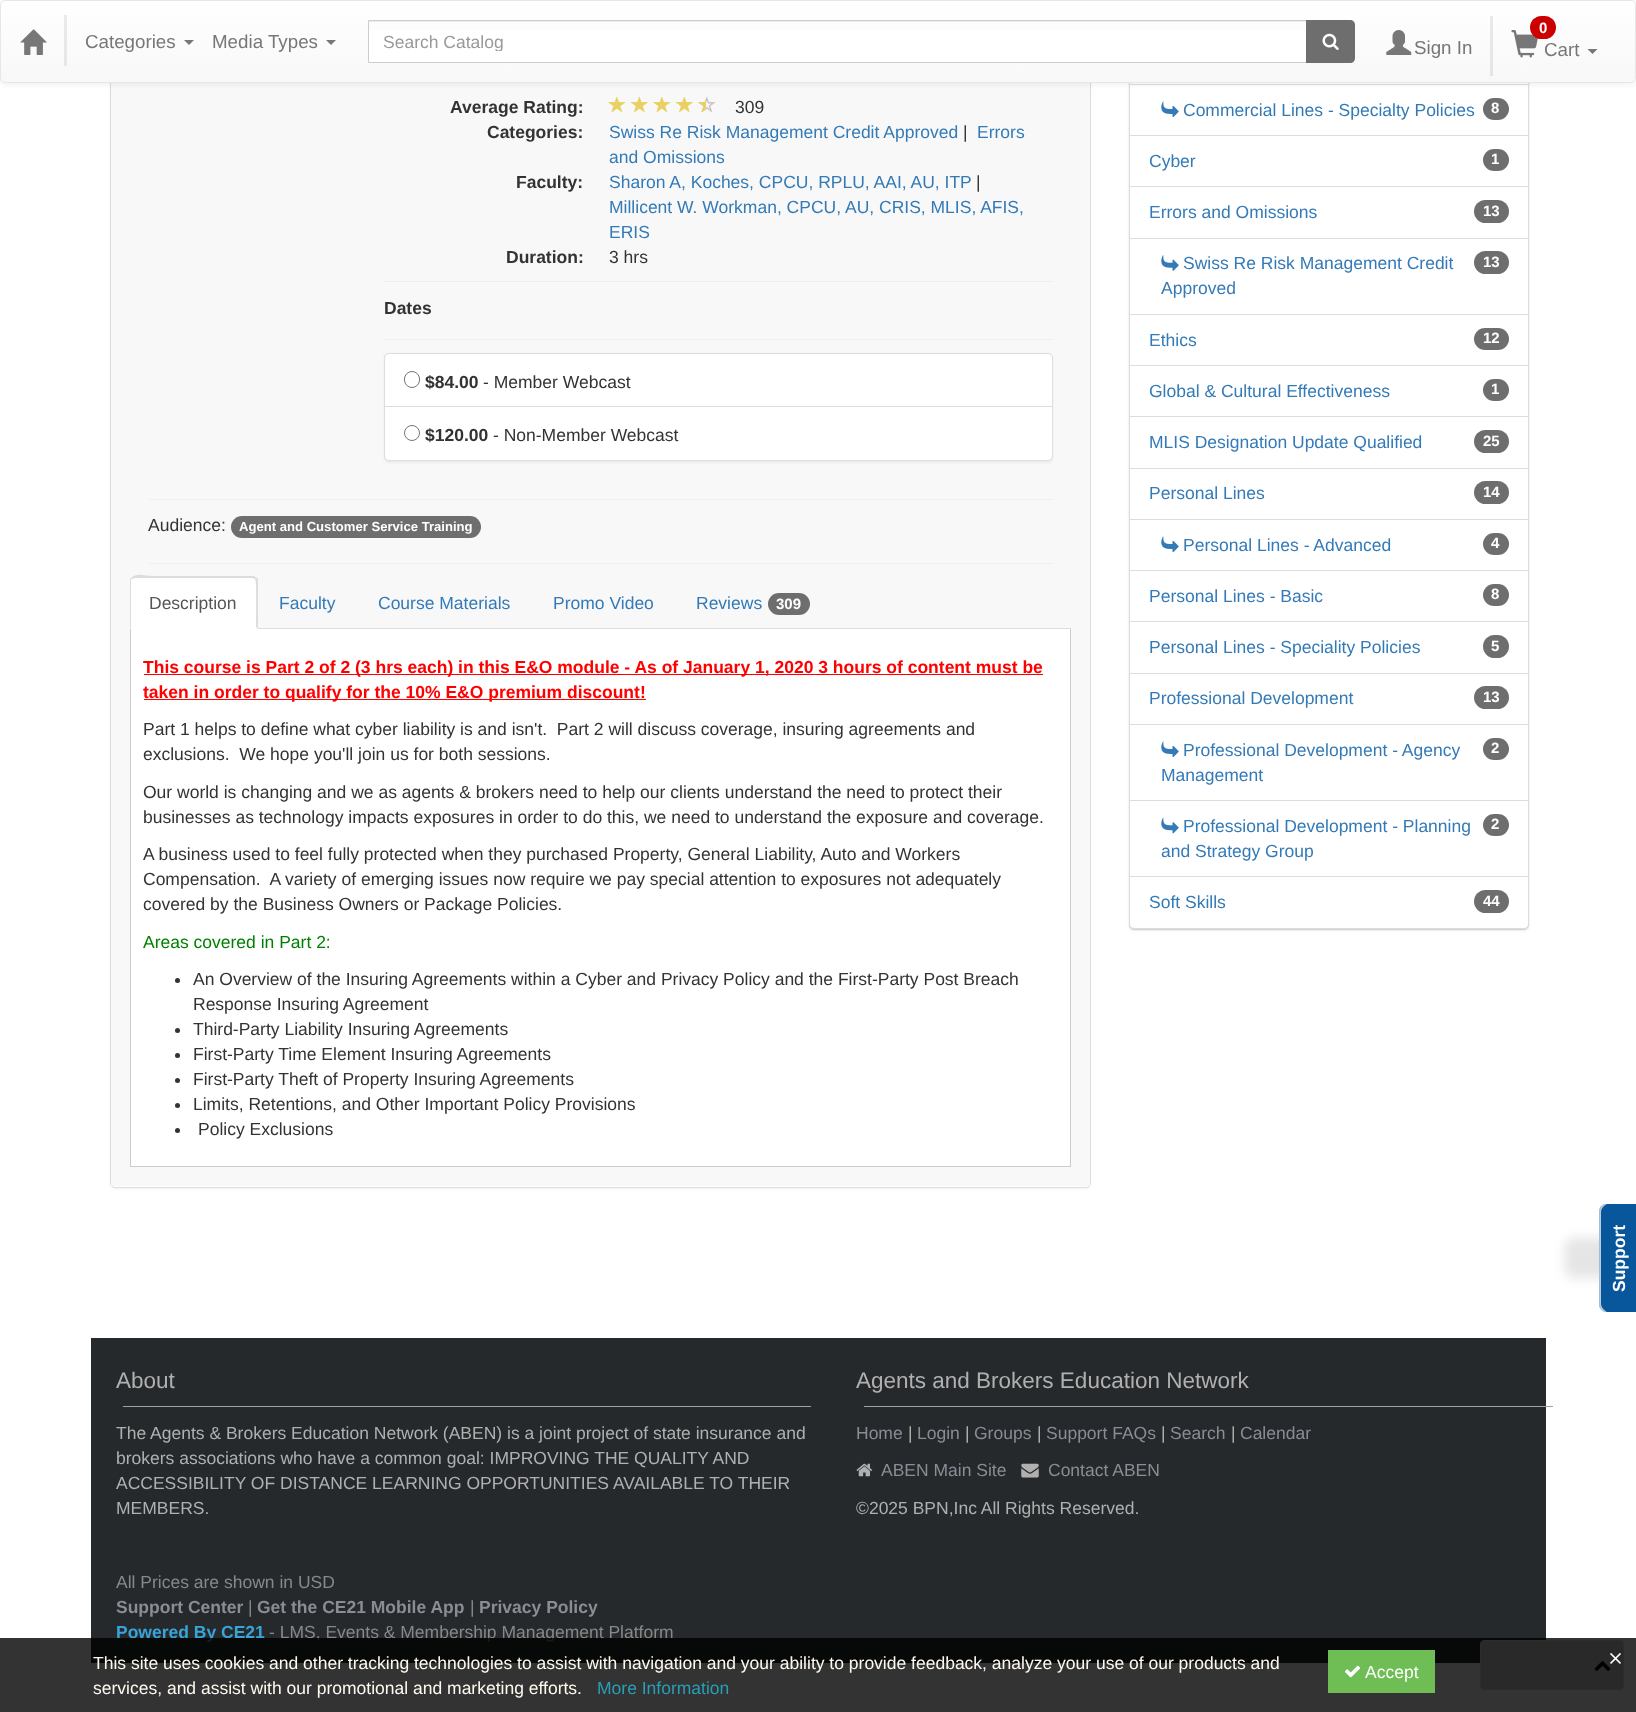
<svg xmlns="http://www.w3.org/2000/svg" width="1636" height="1712">
<style>
.a{font:18.75px Liberation Sans;fill:#777}
.b{font:17.5px Liberation Sans;fill:#999}
.c{font:bold 15px Liberation Sans;fill:#fff}
.d{font:bold 17.5px Liberation Sans;fill:#333}
.e{font:17.5px Liberation Sans;fill:#333}
.f{font:17.5px Liberation Sans;fill:#337ab7}
.g{font:bold 13.1px Liberation Sans;fill:#fff}
.h{font:17.5px Liberation Sans;fill:#555}
.i{font:bold 17.5px Liberation Sans;fill:#f00}
.j{font:17.5px Liberation Sans;fill:#008000}
.k{font:22.5px Liberation Sans;fill:#b0b0b0}
.l{font:17.5px Liberation Sans;fill:#b0b0b0}
.m{font:17.5px Liberation Sans;fill:#898d95}
.n{font:17.5px Liberation Sans;fill:#888}
.o{font:bold 17.5px Liberation Sans;fill:#898d95}
.p{font:bold 17.5px Liberation Sans;fill:#38a4d8}
.q{font:17.5px Liberation Sans;fill:#fffaf0}
.r{font:17.5px Liberation Sans;fill:#289fb7}
.s{font:17.5px Liberation Sans;fill:#fff}
.t{font:bold 17.5px Liberation Sans;fill:#fff}
</style>
<defs>
<clipPath id="clip1"><rect width="1636" height="83" rx="5"/></clipPath>
<linearGradient id="g1" gradientUnits="userSpaceOnUse" x1="818" y1="1.2" x2="818" y2="81"><stop offset="0" stop-color="#fff"/><stop offset="1" stop-color="#f8f8f8"/></linearGradient>
<linearGradient id="g2" gradientUnits="userSpaceOnUse" x1="818" y1="1.2" x2="818" y2="81"><stop offset="0" stop-color="#ebebeb"/><stop offset="1" stop-color="#e5e5e5"/></linearGradient>
<clipPath id="clip2"><path d="M384 31h907v20H384z"/></clipPath>
</defs>
<rect width="100%" height="100%" fill="#fff"/>
<rect fill="#0000000d" filter="blur(1px)" x="110" y="-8" width="981" height="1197" rx="5"/>
<rect fill="#fff" stroke="#ddd" x="110.5" y="-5.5" width="980" height="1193" rx="4.5"/>
<path fill="#f8f8f8" d="M111 83h979v1103H111z"/>
<rect fill="#0000000d" filter="blur(1px)" x="1129" y="-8" width="400" height="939" rx="5"/>
<rect fill="none" stroke="#ddd" x="1129.5" y="-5.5" width="399" height="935" rx="4.5"/>
<rect fill="#00000012" filter="blur(1px)" x="1129" y="-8" width="400" height="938" rx="5"/>
<path fill="#fff" d="M1130 83h398v1H1130z"/>
<path fill="none" stroke="#ddd" d="M1129.5 33.5h399v51H1129.5z"/>
<path fill="#fff" stroke="#ddd" d="M1129.5 84.5h399v51H1129.5z"/>
<rect fill="#00000012" filter="blur(3px)" y="1" width="1636" height="83" rx="5"/>
<rect fill="#f8f8f8" width="1636" height="83" rx="5"/>
<g clip-path="url(#clip1)">
<path fill="url(#g1)" d="M0 1h1636v80H0z"/>
</g>
<path fill="url(#g2)" d="M64 15h3v51H64z"/>
<rect fill="none" stroke="#e7e7e7" x="0.5" y="0.5" width="1635" height="82" rx="4.5"/>
<image href="1.png" x="20" y="29" width="27" height="26"/>
<path fill="#777" d="M184 40h10l-5 5z"/>
<path fill="#777" d="M326 40h10l-5 5z"/>
<path fill="#fff" d="M369 30h937v32H369z"/>
<path fill="#ececec" d="M369 21h937v1H369z"/>
<path fill="none" stroke="#ccc" d="M368.5 20.5h939v42H368.5z"/>
<path fill="#6e6e6e" d="M1306 20h44c3 0 5 2 5 5v33c0 3-2 5-5 5h-44z"/>
<image href="2.png" x="1322" y="33" width="17" height="17"/>
<image href="3.png" x="1386" y="30" width="26" height="25"/>
<path fill="#6e6e6e24" d="M1490 16h3v60H1490z"/>
<image href="4.png" x="1511" y="30" width="27" height="28"/>
<rect fill="#c00" x="1530" y="16" width="26" height="23" rx="11.5"/>
<path fill="#777" d="M1587.5 49h10l-5 5z"/>
<image href="5.png" x="608" y="96" width="18" height="17"/>
<image href="6.png" x="630" y="96" width="18" height="17"/>
<image href="5.png" x="653" y="96" width="18" height="17"/>
<image href="6.png" x="675" y="96" width="18" height="17"/>
<image href="7.png" x="698" y="96" width="18" height="17"/>
<image href="8.png" x="699" y="98" width="7" height="15"/>
<path fill="#eee" d="M384 281h669v1H384z"/>
<path fill="#eee" d="M384 339h669v1H384z"/>
<rect fill="#0000000d" filter="blur(1px)" x="384" y="354" width="669" height="109" rx="5"/>
<rect fill="none" stroke="#ddd" x="384.5" y="353.5" width="668" height="107" rx="4.5"/>
<path fill="#fff" stroke="#ddd" d="M389 353.5h659c2.5 0 4.5 2 4.5 4.5v49.5h-668v-49.5c0-2.5 2-4.5 4.5-4.5z"/>
<rect fill="none" stroke="#767676" x="404.5" y="371.5" width="15" height="16" rx="7.5"/>
<path fill="#fff" stroke="#ddd" d="M384.5 406.5h668v49.5c0 2.5-2 4.5-4.5 4.5h-659c-2.5 0-4.5-2-4.5-4.5z"/>
<circle fill="none" stroke="#767676" cx="412" cy="433" r="7.5"/>
<path fill="#eee" d="M149 499h904v1H149z"/>
<rect fill="#6e6e6e" x="231" y="516" width="250" height="22" rx="11"/>
<path fill="#eee" d="M149 563h904v1H149z"/>
<path fill="#ccc" d="M130 1166h941v1H130z"/>
<path fill="#ddd" d="M258 628h813v1H258z"/>
<path fill="#fff" d="M135 576h118c3 0 5 2 5 5v48h-128v-48c0-3 2-5 5-5z"/>
<path fill="#ddd" d="M135 578l-3 1l-1-1c5-6 15-2 22-2h101l2 1l-1 2l-3-1z"/>
<path fill="#ddd" d="M256 577l2 2v50l-2-2c0-5 1-47-1-48z"/>
<path fill="#ddd" d="M130 629l1-1v-48l1-1l-1-1c-1 0-1 2-1 3z"/>
<rect fill="#6e6e6e" x="768" y="593" width="42" height="22" rx="11"/>
<path fill="#fff" d="M131 629h939v537H131z"/>
<path fill="#ccc" d="M1070 629h1v537H1070z"/>
<path fill="#ccc" d="M130 629h1v537H130z"/>
<path fill="#f00" d="M144 674h899v1H144z"/>
<path fill="#f00" d="M144 699h502v1H144z"/>
<circle fill="#333" cx="177.5" cy="980.5" r="2.5"/>
<circle fill="#333" cx="177.5" cy="1030.5" r="2.5"/>
<circle fill="#333" cx="177.5" cy="1055.5" r="2.5"/>
<circle fill="#333" cx="177.5" cy="1080.5" r="2.5"/>
<circle fill="#333" cx="177.5" cy="1105.5" r="2.5"/>
<circle fill="#333" cx="177.5" cy="1130.5" r="2.5"/>
<image href="9.png" x="1161" y="101" width="18" height="17"/>
<rect fill="#6e6e6e" x="1483" y="98" width="26" height="22" rx="11"/>
<path fill="#fff" d="M1130 136h398v50H1130z"/>
<path fill="none" stroke="#ddd" d="M1129.5 135.5h399v52H1129.5z"/>
<rect fill="#6e6e6e" x="1483" y="149" width="26" height="22" rx="11"/>
<path fill="#fff" stroke="#ddd" d="M1129.5 186.5h399v52H1129.5z"/>
<rect fill="#6e6e6e" x="1474" y="200" width="35" height="23" rx="11.5"/>
<path fill="#fff" stroke="#ddd" d="M1129.5 238.5h399v76H1129.5z"/>
<image href="10.png" x="1161" y="255" width="18" height="16"/>
<rect fill="#6e6e6e" x="1474" y="251" width="35" height="23" rx="11.5"/>
<path fill="#fff" stroke="#ddd" d="M1129.5 314.5h399v51H1129.5z"/>
<rect fill="#6e6e6e" x="1474" y="328" width="35" height="22" rx="11"/>
<path fill="#fff" d="M1130 366h398v50H1130z"/>
<path fill="none" stroke="#ddd" d="M1129.5 365.5h399v52H1129.5z"/>
<rect fill="#6e6e6e" x="1483" y="379" width="26" height="22" rx="11"/>
<path fill="#fff" stroke="#ddd" d="M1129.5 416.5h399v52H1129.5z"/>
<rect fill="#6e6e6e" x="1474" y="430" width="35" height="23" rx="11.5"/>
<path fill="#fff" stroke="#ddd" d="M1129.5 468.5h399v51H1129.5z"/>
<rect fill="#6e6e6e" x="1474" y="481" width="35" height="23" rx="11.5"/>
<path fill="#fff" stroke="#ddd" d="M1129.5 519.5h399v51H1129.5z"/>
<image href="9.png" x="1161" y="536" width="18" height="17"/>
<rect fill="#6e6e6e" x="1483" y="533" width="26" height="22" rx="11"/>
<path fill="#fff" d="M1130 571h398v50H1130z"/>
<path fill="none" stroke="#ddd" d="M1129.5 570.5h399v52H1129.5z"/>
<rect fill="#6e6e6e" x="1483" y="584" width="26" height="22" rx="11"/>
<path fill="#fff" stroke="#ddd" d="M1129.5 621.5h399v52H1129.5z"/>
<rect fill="#6e6e6e" x="1483" y="635" width="26" height="23" rx="11.5"/>
<path fill="#fff" stroke="#ddd" d="M1129.5 673.5h399v51H1129.5z"/>
<rect fill="#6e6e6e" x="1474" y="686" width="35" height="23" rx="11.5"/>
<path fill="#fff" stroke="#ddd" d="M1129.5 724.5h399v76H1129.5z"/>
<image href="9.png" x="1161" y="741" width="18" height="17"/>
<rect fill="#6e6e6e" x="1483" y="738" width="26" height="22" rx="11"/>
<path fill="#fff" d="M1130 801h398v75H1130z"/>
<path fill="none" stroke="#ddd" d="M1129.5 800.5h399v77H1129.5z"/>
<image href="11.png" x="1161" y="817" width="18" height="17"/>
<rect fill="#6e6e6e" x="1483" y="814" width="26" height="22" rx="11"/>
<path fill="#fff" stroke="#ddd" d="M1129.5 876.5h399v47.5c0 2.5-2 4.5-4.5 4.5h-390c-2.5 0-4.5-2-4.5-4.5z"/>
<rect fill="#6e6e6e" x="1474" y="890" width="35" height="23" rx="11.5"/>
<path fill="#25292c" d="M91 1338h1455v325H91z"/>
<rect fill="#ccc" stroke="#dcdcdc" x="1480.5" y="1640.5" width="143" height="49" rx="3.5"/>
<image href="12.png" x="1594" y="1661" width="17" height="10"/>
<path fill="#a1a1a1" d="M123 1406h688v1H123z"/>
<path fill="#a1a1a1" d="M864 1406h689v1H864z"/>
<image href="13.png" x="856" y="1463" width="17" height="14"/>
<image href="14.png" x="1021" y="1463" width="18" height="15"/>
<rect fill="#0000001a" filter="blur(6px)" x="1565" y="1238" width="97" height="40" rx="8"/>
<path fill="#08569b" d="M1599 1304v-92c0-4 3-8 7-8h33v108h-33c-4 0-7-4-7-8z"/>
<path fill="#ffffffb3" d="M1601 1304c0 3 3 6 6 8c-12 0-8-17-8-23v-62c0-5-4-23 8-23c-4 2-6 5-6 8z"/>
<path fill="#00000014" d="M1600 1304c0 3 2 6 4 7c-3-1-5-4-5-7v-92c0-3 2-6 5-7c-2 1-4 4-4 7z"/>
<text class="a" x="85" y="48">Categories</text>
<text class="a" x="212" y="48">Media Types</text>
<g clip-path="url(#clip2)">
<text class="b" x="383" y="48">Search Catalog</text>
</g>
<text class="a" x="1414" y="54">Sign In</text>
<text class="c" x="1539" y="33">0</text>
<text class="a" x="1544" y="56">Cart</text>
<text class="d" x="450" y="113">Average Rating:</text>
<text class="e" x="735" y="113">309</text>
<text class="d" x="487" y="138">Categories:</text>
<text class="f" x="609" y="138">Swiss Re Risk Management Credit Approved</text>
<text class="e" x="963" y="138">|</text>
<text class="f" x="977" y="138">Errors</text>
<text class="f" x="609" y="163">and Omissions</text>
<text class="d" x="516" y="188">Faculty:</text>
<text class="f" x="609" y="188">Sharon A, Koches, CPCU, RPLU, AAI, AU, ITP</text>
<text class="e" x="976" y="188">|</text>
<text class="f" x="609" y="213">Millicent W. Workman, CPCU, AU, CRIS, MLIS, AFIS,</text>
<text class="f" x="609" y="238">ERIS</text>
<text class="d" x="506" y="263">Duration:</text>
<text class="e" x="609" y="263">3 hrs</text>
<text class="d" x="384" y="314">Dates</text>
<text class="d" x="425" y="388">$84.00</text>
<text class="e" x="483" y="388">- Member Webcast</text>
<text class="d" x="425" y="441">$120.00</text>
<text class="e" x="493" y="441">- Non-Member Webcast</text>
<text class="e" x="148" y="531">Audience:</text>
<text class="g" x="239" y="531">Agent and Customer Service Training</text>
<text class="h" x="149" y="609">Description</text>
<text class="f" x="279" y="609">Faculty</text>
<text class="f" x="378" y="609">Course Materials</text>
<text class="f" x="553" y="609">Promo Video</text>
<text class="f" x="696" y="609">Reviews</text>
<text class="c" x="776" y="609">309</text>
<text class="i" x="143" y="673">This course is Part 2 of 2 (3 hrs each) in this E&amp;O module - As of January 1, 2020 3 hours of content must be</text>
<text class="i" x="143" y="698">taken in order to qualify for the 10% E&amp;O premium discount!</text>
<text class="e" xml:space="preserve" x="143" y="735">Part 1 helps to define what cyber liability is and isn't.  Part 2 will discuss coverage, insuring agreements and</text>
<text class="e" xml:space="preserve" x="143" y="760">exclusions.  We hope you'll join us for both sessions.</text>
<text class="e" x="143" y="798">Our world is changing and we as agents &amp; brokers need to help our clients understand the need to protect their</text>
<text class="e" x="143" y="823">businesses as technology impacts exposures in order to do this, we need to understand the exposure and coverage.</text>
<text class="e" x="143" y="860">A business used to feel fully protected when they purchased Property, General Liability, Auto and Workers</text>
<text class="e" xml:space="preserve" x="143" y="885">Compensation.  A variety of emerging issues now require we pay special attention to exposures not adequately</text>
<text class="e" x="143" y="910">covered by the Business Owners or Package Policies.</text>
<text class="j" x="143" y="948">Areas covered in Part 2:</text>
<text class="e" x="193" y="985">An Overview of the Insuring Agreements within a Cyber and Privacy Policy and the First-Party Post Breach</text>
<text class="e" x="193" y="1010">Response Insuring Agreement</text>
<text class="e" x="193" y="1035">Third-Party Liability Insuring Agreements</text>
<text class="e" x="193" y="1060">First-Party Time Element Insuring Agreements</text>
<text class="e" x="193" y="1085">First-Party Theft of Property Insuring Agreements</text>
<text class="e" x="193" y="1110">Limits, Retentions, and Other Important Policy Provisions</text>
<text class="e" x="198" y="1135">Policy Exclusions</text>
<text class="f" x="1183" y="116">Commercial Lines - Specialty Policies</text>
<text class="c" x="1491" y="113">8</text>
<text class="f" x="1149" y="167">Cyber</text>
<text class="c" x="1491" y="164">1</text>
<text class="f" x="1149" y="218">Errors and Omissions</text>
<text class="c" x="1483" y="216">13</text>
<text class="f" x="1183" y="269">Swiss Re Risk Management Credit</text>
<text class="f" x="1161" y="294">Approved</text>
<text class="c" x="1483" y="267">13</text>
<text class="f" x="1149" y="346">Ethics</text>
<text class="c" x="1483" y="343">12</text>
<text class="f" x="1149" y="397">Global &amp; Cultural Effectiveness</text>
<text class="c" x="1491" y="394">1</text>
<text class="f" x="1149" y="448">MLIS Designation Update Qualified</text>
<text class="c" x="1483" y="446">25</text>
<text class="f" x="1149" y="499">Personal Lines</text>
<text class="c" x="1483" y="497">14</text>
<text class="f" x="1183" y="551">Personal Lines - Advanced</text>
<text class="c" x="1491" y="548">4</text>
<text class="f" x="1149" y="602">Personal Lines - Basic</text>
<text class="c" x="1491" y="599">8</text>
<text class="f" x="1149" y="653">Personal Lines - Speciality Policies</text>
<text class="c" x="1491" y="651">5</text>
<text class="f" x="1149" y="704">Professional Development</text>
<text class="c" x="1483" y="702">13</text>
<text class="f" x="1183" y="756">Professional Development - Agency</text>
<text class="f" x="1161" y="781">Management</text>
<text class="c" x="1491" y="753">2</text>
<text class="f" x="1183" y="832">Professional Development - Planning</text>
<text class="f" x="1161" y="857">and Strategy Group</text>
<text class="c" x="1491" y="829">2</text>
<text class="f" x="1149" y="908">Soft Skills</text>
<text class="c" x="1483" y="906">44</text>
<text class="k" x="116" y="1388">About</text>
<text class="l" x="116" y="1439">The Agents &amp; Brokers Education Network (ABEN) is a joint project of state insurance and</text>
<text class="l" x="116" y="1464">brokers associations who have a common goal: IMPROVING THE QUALITY AND</text>
<text class="l" x="116" y="1489">ACCESSIBILITY OF DISTANCE LEARNING OPPORTUNITIES AVAILABLE TO THEIR</text>
<text class="l" x="116" y="1514">MEMBERS.</text>
<text class="k" x="856" y="1388">Agents and Brokers Education Network</text>
<text class="m" x="856" y="1439">Home</text>
<text class="l" x="908" y="1439">|</text>
<text class="m" x="917" y="1439">Login</text>
<text class="l" x="965" y="1439">|</text>
<text class="m" x="974" y="1439">Groups</text>
<text class="l" x="1037" y="1439">|</text>
<text class="m" x="1046" y="1439">Support FAQs</text>
<text class="l" x="1161" y="1439">|</text>
<text class="m" x="1170" y="1439">Search</text>
<text class="l" x="1231" y="1439">|</text>
<text class="m" x="1240" y="1439">Calendar</text>
<text class="m" x="881" y="1476">ABEN Main Site</text>
<text class="m" x="1048" y="1476">Contact ABEN</text>
<text class="l" x="856" y="1514">©2025 BPN,Inc All Rights Reserved.</text>
<text class="n" x="116" y="1588">All Prices are shown in USD</text>
<text class="o" x="116" y="1613">Support Center</text>
<text class="n" x="248" y="1613">|</text>
<text class="o" x="257" y="1613">Get the CE21 Mobile App</text>
<text class="n" x="470" y="1613">|</text>
<text class="o" x="479" y="1613">Privacy Policy</text>
<text class="p" x="116" y="1638">Powered By CE21</text>
<text class="n" x="269" y="1638">- LMS, Events &amp; Membership Management Platform</text>
<path fill="#000000cc" d="M0 1638h1636v74H0z"/>
<text class="q" x="93" y="1669">This site uses cookies and other tracking technologies to assist with navigation and your ability to provide feedback, analyze your use of our products and</text>
<text class="q" x="93" y="1694">services, and assist with our promotional and marketing efforts.</text>
<text class="r" x="597" y="1694">More Information</text>
<path fill="#6fbd55" d="M1328 1650h107v43H1328z"/>
<image href="15.png" x="1345" y="1665" width="15" height="13"/>
<text class="s" x="1365" y="1678">Accept</text>
<image href="16.png" x="1610" y="1653" width="11" height="11"/>
<text class="t" x="1625" y="1292" transform="rotate(-90 1625 1292)">Support</text>
</svg>
